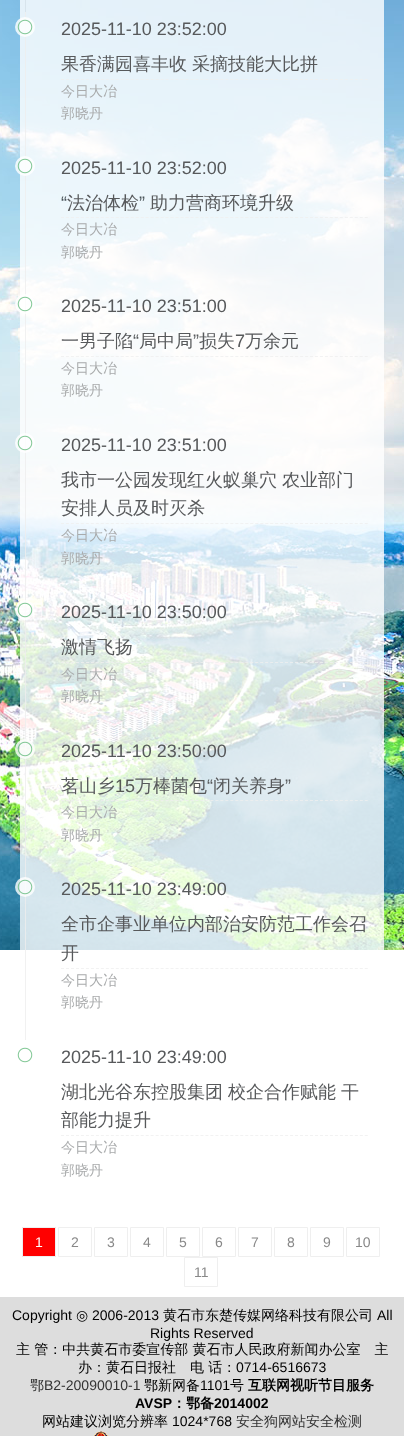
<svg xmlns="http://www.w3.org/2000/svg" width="404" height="1436">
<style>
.a{font:18px Liberation Sans;fill:#57595b}
.b{font:500 18px WenQuanYi Zen Hei;fill:#57595b}
.c{font:500 14px WenQuanYi Zen Hei;fill:#a9abac}
.d{font:18px Liberation Sans;fill:#495358}
.e{font:18px Liberation Sans;fill:#565955}
.f{font:14px Liberation Sans;fill:#fff}
.g{font:14px Liberation Sans;fill:#888}
.h{font:14px Liberation Sans;fill:#000}
.i{font:14px DejaVu Sans;fill:#000}
.j{font:500 14px WenQuanYi Zen Hei;fill:#000}
.k{font:500 14px WenQuanYi Zen Hei;fill:#333}
.l{font:14px Liberation Sans;fill:#333}
.m{font:bold 14px WenQuanYi Zen Hei;fill:#000}
.n{font:bold 14px Liberation Sans;fill:#000}
</style>
<rect width="100%" height="100%" fill="#fff"/>
<image href="1.png" x="0" y="0" width="404" height="950"/>
<path fill="#ffffffcc" d="M20 0h364v12H20z"/>
<path fill="#d8e4ec" d="M25 0h1v12H25z"/>
<path fill="#ffffffcc" d="M20 12h364v139H20z"/>
<path fill="#eeeeeecc" d="M25 12h1v139H25z"/>
<circle fill="#ffffffcc" cx="25" cy="27" r="10"/>
<image href="2.png" x="17" y="19" width="16" height="16"/>
<path fill="none" stroke="#edf0f1" stroke-dasharray="3 1.98" d="M61 79.5h307"/>
<path fill="#ffffffcc" d="M20 151h364v138H20z"/>
<path fill="#eeeeeecc" d="M25 151h1v138H25z"/>
<circle fill="#ffffffcc" cx="25" cy="166" r="10"/>
<image href="3.png" x="17" y="158" width="16" height="16"/>
<path fill="none" stroke="#efefefcc" stroke-dasharray="3 1.98" d="M61 217.5h307"/>
<path fill="#ffffffcc" d="M20 289h364v139H20z"/>
<path fill="#eeeeeecc" d="M25 289h1v139H25z"/>
<circle fill="#ffffffcc" cx="25" cy="304" r="10"/>
<image href="4.png" x="17" y="296" width="16" height="16"/>
<path fill="none" stroke="#efefefcc" stroke-dasharray="3 1.98" d="M61 356.5h307"/>
<path fill="#ffffffcc" d="M20 428h364v167H20z"/>
<path fill="#eeeeeecc" d="M25 428h1v167H25z"/>
<circle fill="#ffffffcc" cx="25" cy="443" r="10"/>
<image href="5.png" x="17" y="435" width="16" height="16"/>
<path fill="none" stroke="#efefefcc" stroke-dasharray="3 1.98" d="M61 523.5h307"/>
<path fill="#ffffffcc" d="M20 595h364v139H20z"/>
<path fill="#eeeeeecc" d="M25 595h1v139H25z"/>
<circle fill="#ffffffcc" cx="25" cy="610" r="10"/>
<image href="6.png" x="17" y="602" width="16" height="16"/>
<path fill="none" stroke="#efefefcc" stroke-dasharray="3 1.98" d="M61 662.5h307"/>
<path fill="#ffffffcc" d="M20 734h364v138H20z"/>
<path fill="#eeeeeecc" d="M25 734h1v138H25z"/>
<circle fill="#ffffffcc" cx="25" cy="749" r="10"/>
<image href="7.png" x="17" y="741" width="16" height="16"/>
<path fill="none" stroke="#efefefcc" stroke-dasharray="3 1.98" d="M61 800.5h307"/>
<path fill="#ffffffcc" d="M20 872h364v78H20z"/>
<path fill="#eeeeeecc" d="M25 872h1v168H25z"/>
<circle fill="#ffffffcc" cx="25" cy="887" r="10"/>
<image href="8.png" x="17" y="879" width="16" height="16"/>
<path fill="none" stroke="#f2f2f2" stroke-dasharray="3 1.98" d="M61 968.5h307"/>
<image href="9.png" x="17" y="1047" width="16" height="16"/>
<path fill="none" stroke="#f2f2f2" stroke-dasharray="3 1.98" d="M61 1135.5h307"/>
<path fill="#f00" stroke="#efefef" d="M22.5 1227.5h33v29H22.5z"/>
<path fill="none" stroke="#efefef" d="M58.5 1227.5h33v29H58.5z"/>
<path fill="none" stroke="#efefef" d="M94.5 1227.5h33v29H94.5z"/>
<path fill="none" stroke="#efefef" d="M130.5 1227.5h33v29H130.5z"/>
<path fill="none" stroke="#efefef" d="M166.5 1227.5h33v29H166.5z"/>
<path fill="none" stroke="#efefef" d="M202.5 1227.5h33v29H202.5z"/>
<path fill="none" stroke="#efefef" d="M238.5 1227.5h33v29H238.5z"/>
<path fill="none" stroke="#efefef" d="M274.5 1227.5h33v29H274.5z"/>
<path fill="none" stroke="#efefef" d="M310.5 1227.5h33v29H310.5z"/>
<path fill="none" stroke="#efefef" d="M346.5 1227.5h33v29H346.5z"/>
<path fill="none" stroke="#efefef" d="M184.5 1257.5h33v29H184.5z"/>
<path fill="#ddd" d="M0 1297h404v139H0z"/>
<image href="10.png" x="93" y="1431" width="16" height="5"/>
<text class="a" x="61" y="35">2025-11-10 23:52:00</text>
<text class="b" x="61" y="70">果香满园喜丰收</text>
<text class="b" x="192" y="70">采摘技能大比拼</text>
<text class="c" x="61" y="96">今日大冶</text>
<text class="c" x="61" y="118">郭晓丹</text>
<text class="a" x="61" y="174">2025-11-10 23:52:00</text>
<text class="d" x="61" y="209">“</text>
<text class="b" x="67" y="209">法治体检</text>
<text class="d" x="139" y="209">”</text>
<text class="b" x="150" y="209">助力营商环境升级</text>
<text class="c" x="61" y="234">今日大冶</text>
<text class="c" x="61" y="257">郭晓丹</text>
<text class="a" x="61" y="312">2025-11-10 23:51:00</text>
<text class="b" x="61" y="347">一男子陷</text>
<text class="a" x="133" y="347">“</text>
<text class="b" x="139" y="347">局中局</text>
<text class="a" x="193" y="347">”</text>
<text class="b" x="199" y="347">损失</text>
<text class="a" x="235" y="347">7</text>
<text class="b" x="245" y="347">万余元</text>
<text class="c" x="61" y="373">今日大冶</text>
<text class="c" x="61" y="395">郭晓丹</text>
<text class="a" x="61" y="451">2025-11-10 23:51:00</text>
<text class="b" x="61" y="486">我市一公园发现红火蚁巢穴</text>
<text class="b" x="282" y="486">农业部门</text>
<text class="b" x="61" y="514">安排人员及时灭杀</text>
<text class="c" x="61" y="540">今日大冶</text>
<text class="c" x="61" y="563">郭晓丹</text>
<text class="a" x="61" y="618">2025-11-10 23:50:00</text>
<text class="b" x="61" y="653">激情飞扬</text>
<text class="c" x="61" y="679">今日大冶</text>
<text class="c" x="61" y="701">郭晓丹</text>
<text class="a" x="61" y="757">2025-11-10 23:50:00</text>
<text class="b" x="61" y="792">茗山乡</text>
<text class="e" x="115" y="792">15</text>
<text class="b" x="135" y="792">万棒菌包</text>
<text class="a" x="207" y="792">“</text>
<text class="b" x="213" y="792">闭关养身</text>
<text class="a" x="285" y="792">”</text>
<text class="c" x="61" y="817">今日大冶</text>
<text class="c" x="61" y="840">郭晓丹</text>
<text class="a" x="61" y="895">2025-11-10 23:49:00</text>
<text class="b" x="61" y="930">全市企事业单位内部治安防范工作会召</text>
<text class="b" x="61" y="959">开</text>
<text class="c" x="61" y="985">今日大冶</text>
<text class="c" x="61" y="1007">郭晓丹</text>
<text class="a" x="61" y="1063">2025-11-10 23:49:00</text>
<text class="b" x="61" y="1098">湖北光谷东控股集团</text>
<text class="b" x="228" y="1098">校企合作赋能</text>
<text class="b" x="341" y="1098">干</text>
<text class="b" x="61" y="1126">部能力提升</text>
<text class="c" x="61" y="1152">今日大冶</text>
<text class="c" x="61" y="1175">郭晓丹</text>
<text class="f" x="35" y="1247">1</text>
<text class="g" x="71" y="1247">2</text>
<text class="g" x="107" y="1247">3</text>
<text class="g" x="143" y="1247">4</text>
<text class="g" x="179" y="1247">5</text>
<text class="g" x="215" y="1247">6</text>
<text class="g" x="251" y="1247">7</text>
<text class="g" x="287" y="1247">8</text>
<text class="g" x="323" y="1247">9</text>
<text class="g" x="355" y="1247">10</text>
<text class="g" x="194" y="1277">11</text>
<text class="h" x="12" y="1320">Copyright</text>
<text class="i" x="76" y="1320">◎</text>
<text class="h" x="92" y="1320">2006-2013</text>
<text class="j" x="163" y="1320">黄石市东楚传媒网络科技有限公司</text>
<text class="h" x="377" y="1320">All</text>
<text class="h" x="150" y="1338">Rights Reserved</text>
<text class="j" x="16" y="1354">主 管：中共黄石市委宣传部 黄石市人民政府新闻办公室　主</text>
<text class="j" x="78" y="1372">办：黄石日报社　电 话：</text>
<text class="h" x="236" y="1372">0714-6516673</text>
<text class="k" x="30" y="1390">鄂</text>
<text class="l" x="44" y="1390">B2-20090010-1</text>
<text class="j" x="144" y="1390">鄂新网备</text>
<text class="h" x="200" y="1390">1101</text>
<text class="j" x="230" y="1390">号</text>
<text class="m" x="248" y="1390">互联网视听节目服务</text>
<text class="n" x="135" y="1408">AVSP</text>
<text class="m" x="172" y="1408">：鄂备</text>
<text class="n" x="214" y="1408">2014002</text>
<text class="j" x="42" y="1426">网站建议浏览分辨率</text>
<text class="h" x="172" y="1426">1024*768</text>
<text class="k" x="236" y="1426">安全狗网站安全检测</text>
</svg>
